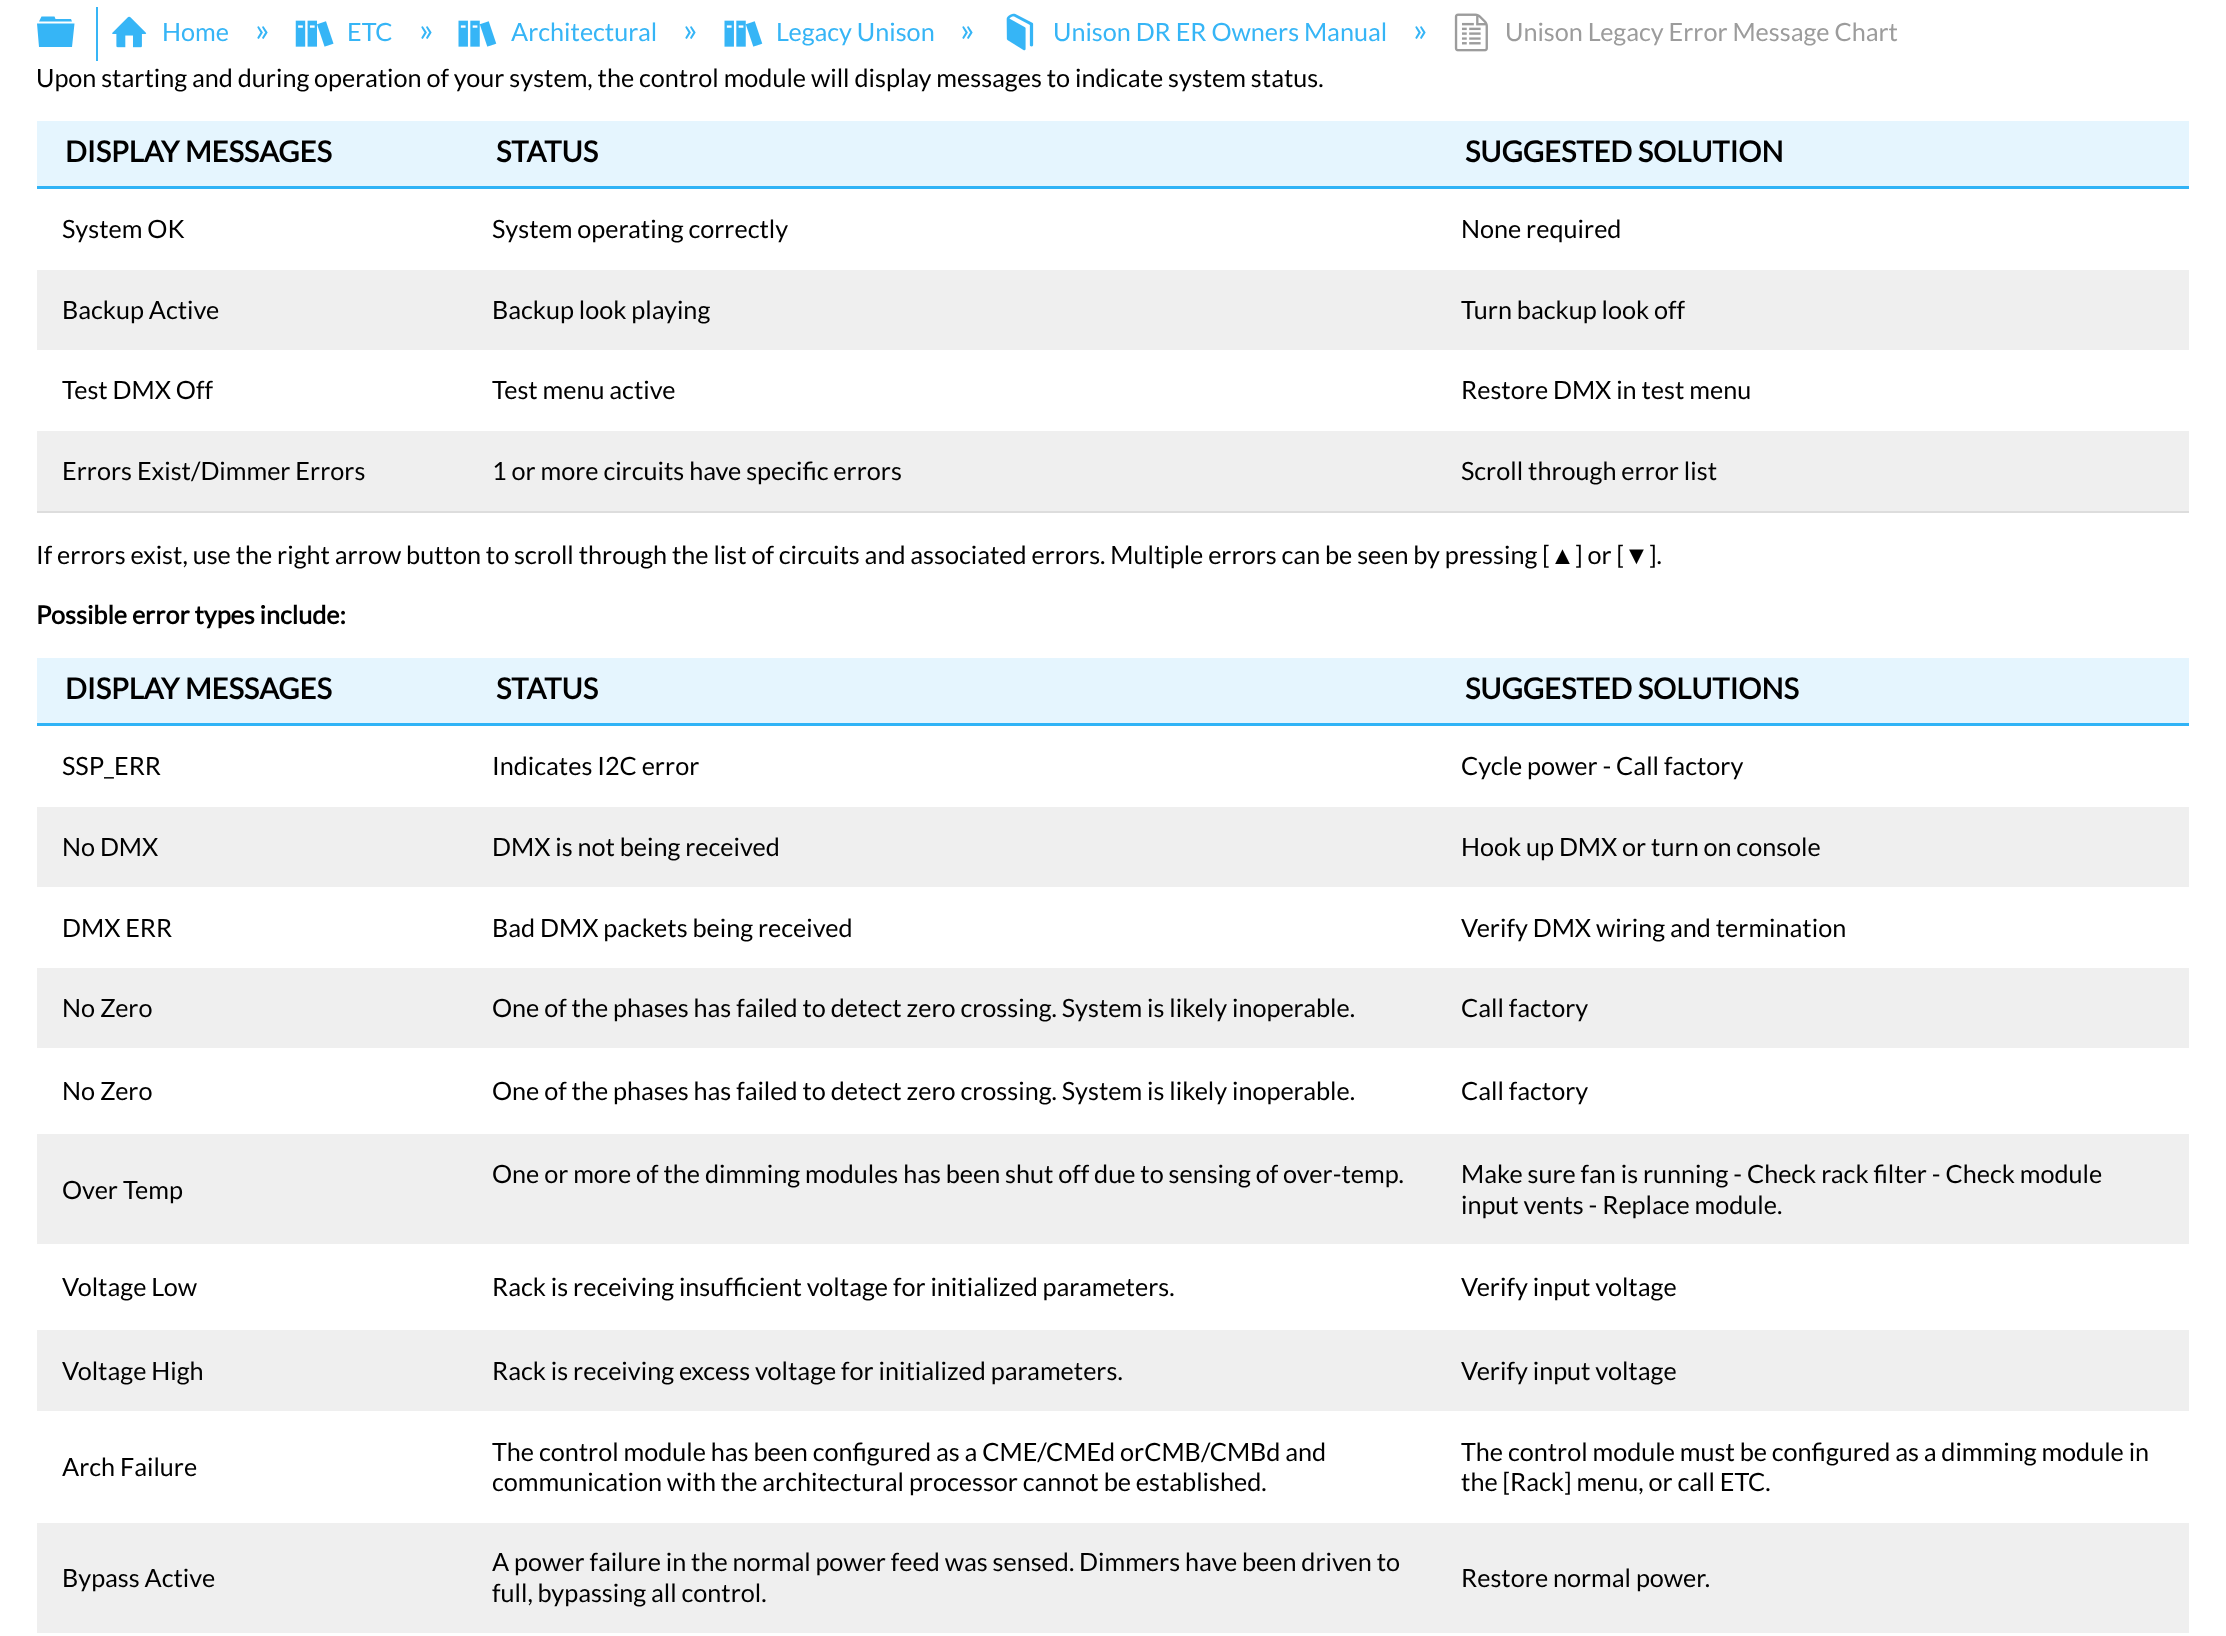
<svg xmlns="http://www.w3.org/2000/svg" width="2226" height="1636">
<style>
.a{font:25.2px Lato;fill:#36b5f6}
.b{font:32px Lato;fill:#36b5f6}
.c{font:25.2px Lato;fill:#9c9c9c}
.d{font:25.2px Lato;fill:#000}
.e{font:bold 29px Lato;fill:#000}
.f{font:25.2px Liberation Sans;fill:#000}
.g{font:bold 25.2px Lato;fill:#000}
</style>
<rect width="100%" height="100%" fill="#fff"/>
<path fill="#36b5f6" d="M37 23.5h37.5l-2.5 23.5h-33zm34-4.5l1 2.5h-33l2.5-5h13l1 2.5z"/>
<path fill="#36b5f6" d="M96 7h2v54H96z"/>
<image href="1.png" x="112" y="16" width="35" height="32"/>
<image href="2.png" x="295" y="20" width="39" height="27"/>
<image href="3.png" x="458" y="20" width="39" height="27"/>
<image href="3.png" x="724" y="20" width="39" height="27"/>
<image href="4.png" x="1006" y="13" width="28" height="38"/>
<image href="5.png" x="1454" y="13" width="34" height="39"/>
<path fill="#ddd" d="M37 511h2152v2H37z"/>
<path fill="#e5f5fe" d="M37 121h2152v65H37z"/>
<path fill="#30b3f6" d="M37 186h2152v3H37z"/>
<path fill="#efefef" d="M37 270h2152v80H37z"/>
<path fill="#efefef" d="M37 431h2152v80H37z"/>
<path fill="#e5f5fe" d="M37 658h2152v65H37z"/>
<path fill="#30b3f6" d="M37 723h2152v3H37z"/>
<path fill="#efefef" d="M37 807h2152v80H37z"/>
<path fill="#efefef" d="M37 968h2152v80H37z"/>
<path fill="#efefef" d="M37 1134h2152v110H37z"/>
<path fill="#efefef" d="M37 1330h2152v81H37z"/>
<path fill="#efefef" d="M37 1523h2152v110H37z"/>
<text class="a" x="162" y="41">Home</text>
<text class="b" x="255" y="41">»</text>
<text class="a" x="347" y="41">ETC</text>
<text class="b" x="419" y="41">»</text>
<text class="a" x="511" y="41">Architectural</text>
<text class="b" x="683" y="41">»</text>
<text class="a" x="776" y="41">Legacy Unison</text>
<text class="b" x="960" y="41">»</text>
<text class="a" x="1053" y="41">Unison DR ER Owners Manual</text>
<text class="b" x="1413" y="41">»</text>
<text class="c" x="1505" y="41">Unison Legacy Error Message Chart</text>
<text class="d" x="36" y="87">Upon starting and during operation of your system, the control module will display messages to indicate system status.</text>
<text class="e" x="65" y="162">DISPLAY MESSAGES</text>
<text class="e" x="496" y="162">STATUS</text>
<text class="e" x="1465" y="162">SUGGESTED SOLUTION</text>
<text class="d" x="62" y="238">System OK</text>
<text class="d" x="492" y="238">System operating correctly</text>
<text class="d" x="1461" y="238">None required</text>
<text class="d" x="62" y="319">Backup Active</text>
<text class="d" x="492" y="319">Backup look playing</text>
<text class="d" x="1461" y="319">Turn backup look off</text>
<text class="d" x="62" y="399">Test DMX Off</text>
<text class="d" x="492" y="399">Test menu active</text>
<text class="d" x="1461" y="399">Restore DMX in test menu</text>
<text class="d" x="62" y="480">Errors Exist/Dimmer Errors</text>
<text class="d" x="492" y="480">1 or more circuits have specific errors</text>
<text class="d" x="1461" y="480">Scroll through error list</text>
<text class="d" x="36" y="564">If errors exist, use the right arrow button to scroll through the list of circuits and associated errors. Multiple errors can be seen by pressing [</text>
<text class="f" x="1550" y="564">▲</text>
<text class="d" x="1575" y="564">] or [</text>
<text class="f" x="1624" y="564">▼</text>
<text class="d" x="1649" y="564">].</text>
<text class="g" x="36" y="624">Possible error types include:</text>
<text class="e" x="65" y="699">DISPLAY MESSAGES</text>
<text class="e" x="496" y="699">STATUS</text>
<text class="e" x="1465" y="699">SUGGESTED SOLUTIONS</text>
<text class="d" x="62" y="775">SSP_ERR</text>
<text class="d" x="492" y="775">Indicates I2C error</text>
<text class="d" x="1461" y="775">Cycle power - Call factory</text>
<text class="d" x="62" y="856">No DMX</text>
<text class="d" x="492" y="856">DMX is not being received</text>
<text class="d" x="1461" y="856">Hook up DMX or turn on console</text>
<text class="d" x="62" y="937">DMX ERR</text>
<text class="d" x="492" y="937">Bad DMX packets being received</text>
<text class="d" x="1461" y="937">Verify DMX wiring and termination</text>
<text class="d" x="62" y="1017">No Zero</text>
<text class="d" x="492" y="1017">One of the phases has failed to detect zero crossing. System is likely inoperable.</text>
<text class="d" x="1461" y="1017">Call factory</text>
<text class="d" x="62" y="1100">No Zero</text>
<text class="d" x="492" y="1100">One of the phases has failed to detect zero crossing. System is likely inoperable.</text>
<text class="d" x="1461" y="1100">Call factory</text>
<text class="d" x="62" y="1199">Over Temp</text>
<text class="d" x="492" y="1183">One or more of the dimming modules has been shut off due to sensing of over-temp.</text>
<text class="d" x="1461" y="1183">Make sure fan is running - Check rack filter - Check module</text>
<text class="d" x="1461" y="1214">input vents - Replace module.</text>
<text class="d" x="62" y="1296">Voltage Low</text>
<text class="d" x="492" y="1296">Rack is receiving insufficient voltage for initialized parameters.</text>
<text class="d" x="1461" y="1296">Verify input voltage</text>
<text class="d" x="62" y="1380">Voltage High</text>
<text class="d" x="492" y="1380">Rack is receiving excess voltage for initialized parameters.</text>
<text class="d" x="1461" y="1380">Verify input voltage</text>
<text class="d" x="62" y="1476">Arch Failure</text>
<text class="d" x="492" y="1461">The control module has been configured as a CME/CMEd orCMB/CMBd and</text>
<text class="d" x="492" y="1491">communication with the architectural processor cannot be established.</text>
<text class="d" x="1461" y="1461">The control module must be configured as a dimming module in</text>
<text class="d" x="1461" y="1491">the [Rack] menu, or call ETC.</text>
<text class="d" x="62" y="1587">Bypass Active</text>
<text class="d" x="492" y="1571">A power failure in the normal power feed was sensed. Dimmers have been driven to</text>
<text class="d" x="492" y="1602">full, bypassing all control.</text>
<text class="d" x="1461" y="1587">Restore normal power.</text>
</svg>
